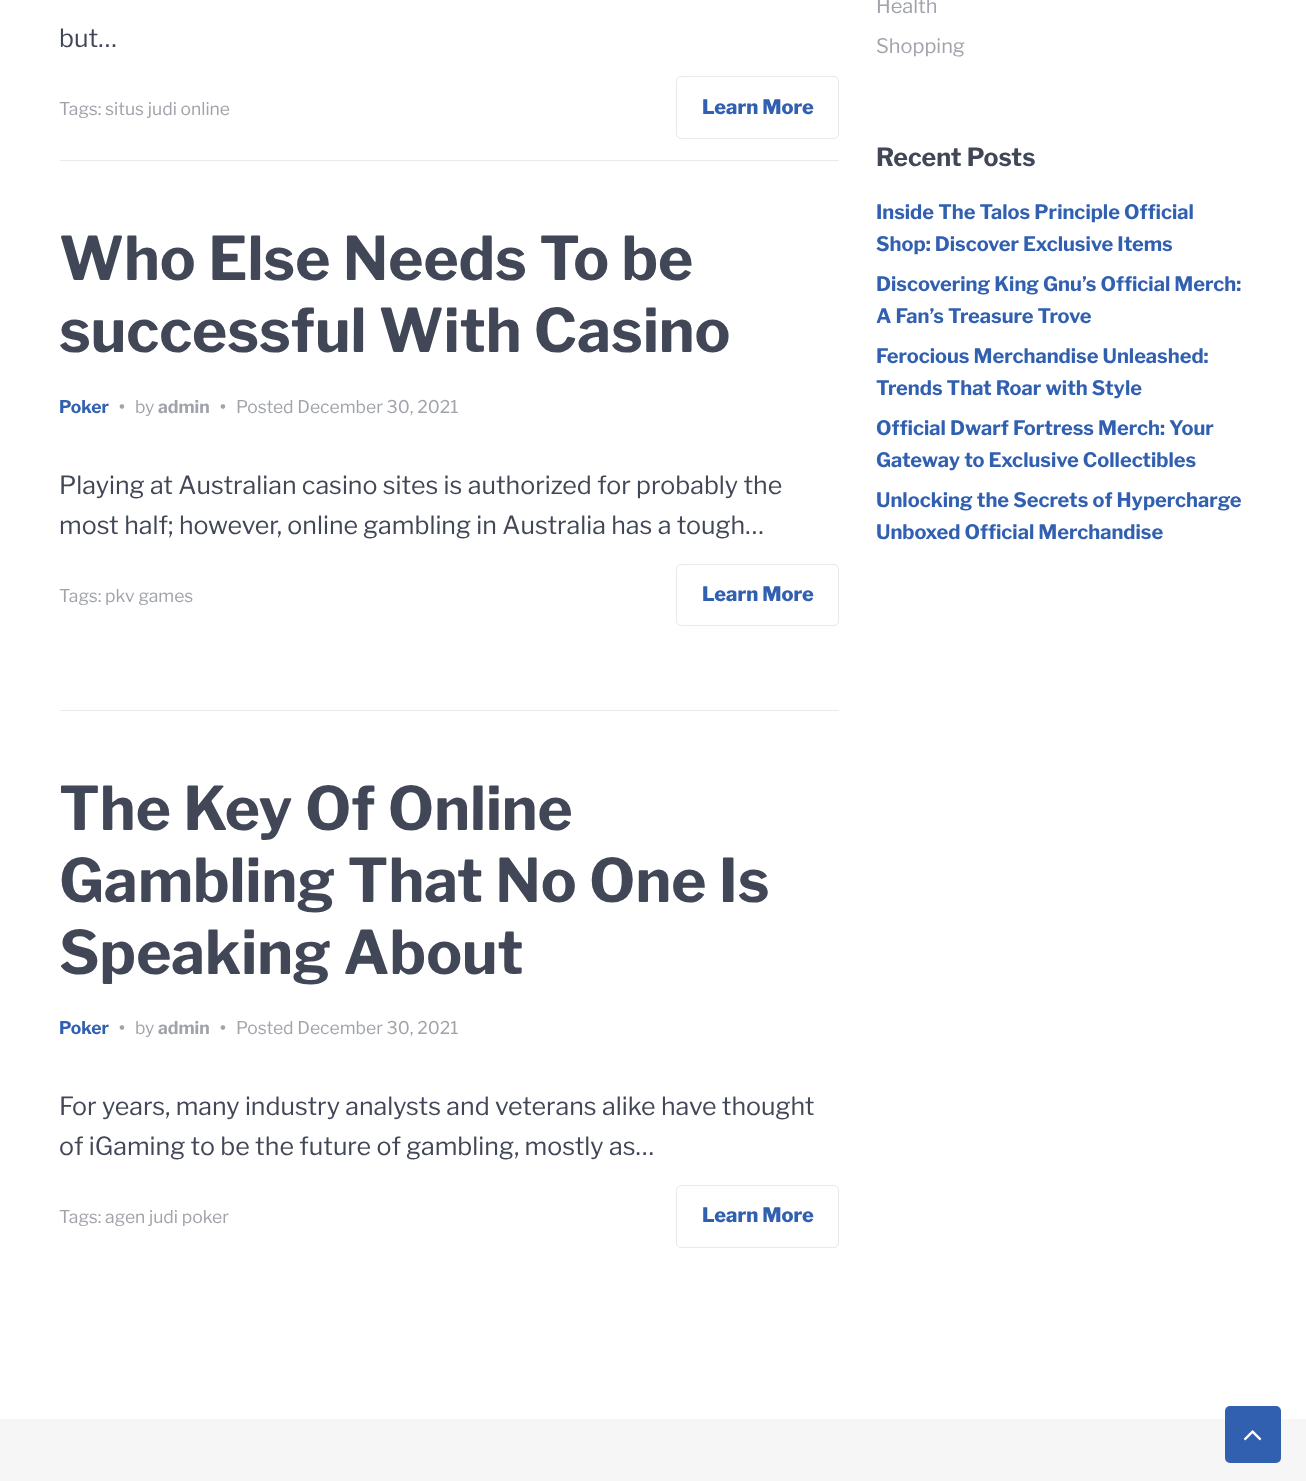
<svg xmlns="http://www.w3.org/2000/svg" width="1306" height="1481">
<style>
.a{font:25px Libre Franklin;fill:#414756}
.b{font:17.5px Libre Franklin;fill:#a0a3aa}
.c{font:800 20px Libre Franklin;fill:#3260b1}
.d{font:bold 60px Libre Franklin;fill:#414756}
.e{font:bold 17.5px Libre Franklin;fill:#3260b1}
.f{font:bold 17.5px Libre Franklin;fill:#a0a3aa}
.g{font:20px Libre Franklin;fill:#a0a3aa}
.h{font:bold 25px Libre Franklin;fill:#414756}
.i{font:bold 20px Libre Franklin;fill:#3260b1}
</style>
<rect width="100%" height="100%" fill="#fff"/>
<rect fill="none" stroke="#e8e9eb" x="676.5" y="76.5" width="162" height="62" rx="4.5"/>
<path fill="#e8e9eb" d="M60 160h779v1H60z"/>
<rect fill="none" stroke="#e8e9eb" x="676.5" y="564.5" width="162" height="61" rx="4.5"/>
<path fill="#e8e9eb" d="M60 710h779v1H60z"/>
<rect fill="none" stroke="#e8e9eb" x="676.5" y="1185.5" width="162" height="62" rx="4.5"/>
<path fill="#f6f6f7" d="M0 1419h1306v62H0z"/>
<rect fill="#3260b1" x="1225" y="1406" width="56" height="57" rx="5"/>
<image href="1.png" x="1243" y="1430" width="19" height="11"/>
<text class="a" x="59" y="47">but…</text>
<text class="b" x="59" y="115">Tags: situs judi online</text>
<text class="c" x="702" y="114">Learn More</text>
<text class="d" x="59" y="280">Who Else Needs To be</text>
<text class="d" x="59" y="352">successful With Casino</text>
<text class="e" x="59" y="413">Poker</text>
<text class="f" x="119" y="413">•</text>
<text class="b" x="135" y="413">by</text>
<text class="f" x="158" y="413">admin</text>
<text class="f" x="220" y="413">•</text>
<text class="b" x="236" y="413">Posted December 30, 2021</text>
<text class="a" x="59" y="494">Playing at Australian casino sites is authorized for probably the</text>
<text class="a" x="59" y="534">most half; however, online gambling in Australia has a tough…</text>
<text class="b" x="59" y="602">Tags: pkv games</text>
<text class="c" x="702" y="601">Learn More</text>
<text class="d" x="59" y="830">The Key Of Online</text>
<text class="d" x="59" y="902">Gambling That No One Is</text>
<text class="d" x="59" y="974">Speaking About</text>
<text class="e" x="59" y="1034">Poker</text>
<text class="f" x="119" y="1034">•</text>
<text class="b" x="135" y="1034">by</text>
<text class="f" x="158" y="1034">admin</text>
<text class="f" x="220" y="1034">•</text>
<text class="b" x="236" y="1034">Posted December 30, 2021</text>
<text class="a" x="59" y="1115">For years, many industry analysts and veterans alike have thought</text>
<text class="a" x="59" y="1155">of iGaming to be the future of gambling, mostly as…</text>
<text class="b" x="59" y="1223">Tags: agen judi poker</text>
<text class="c" x="702" y="1222">Learn More</text>
<text class="g" x="876" y="13">Health</text>
<text class="g" x="876" y="53">Shopping</text>
<text class="h" x="876" y="166">Recent Posts</text>
<text class="i" x="876" y="219">Inside The Talos Principle Official</text>
<text class="i" x="876" y="251">Shop: Discover Exclusive Items</text>
<text class="i" x="876" y="291">Discovering King Gnu’s Official Merch:</text>
<text class="i" x="876" y="323">A Fan’s Treasure Trove</text>
<text class="i" x="876" y="363">Ferocious Merchandise Unleashed:</text>
<text class="i" x="876" y="395">Trends That Roar with Style</text>
<text class="i" x="876" y="435">Official Dwarf Fortress Merch: Your</text>
<text class="i" x="876" y="467">Gateway to Exclusive Collectibles</text>
<text class="i" x="876" y="507">Unlocking the Secrets of Hypercharge</text>
<text class="i" x="876" y="539">Unboxed Official Merchandise</text>
</svg>
